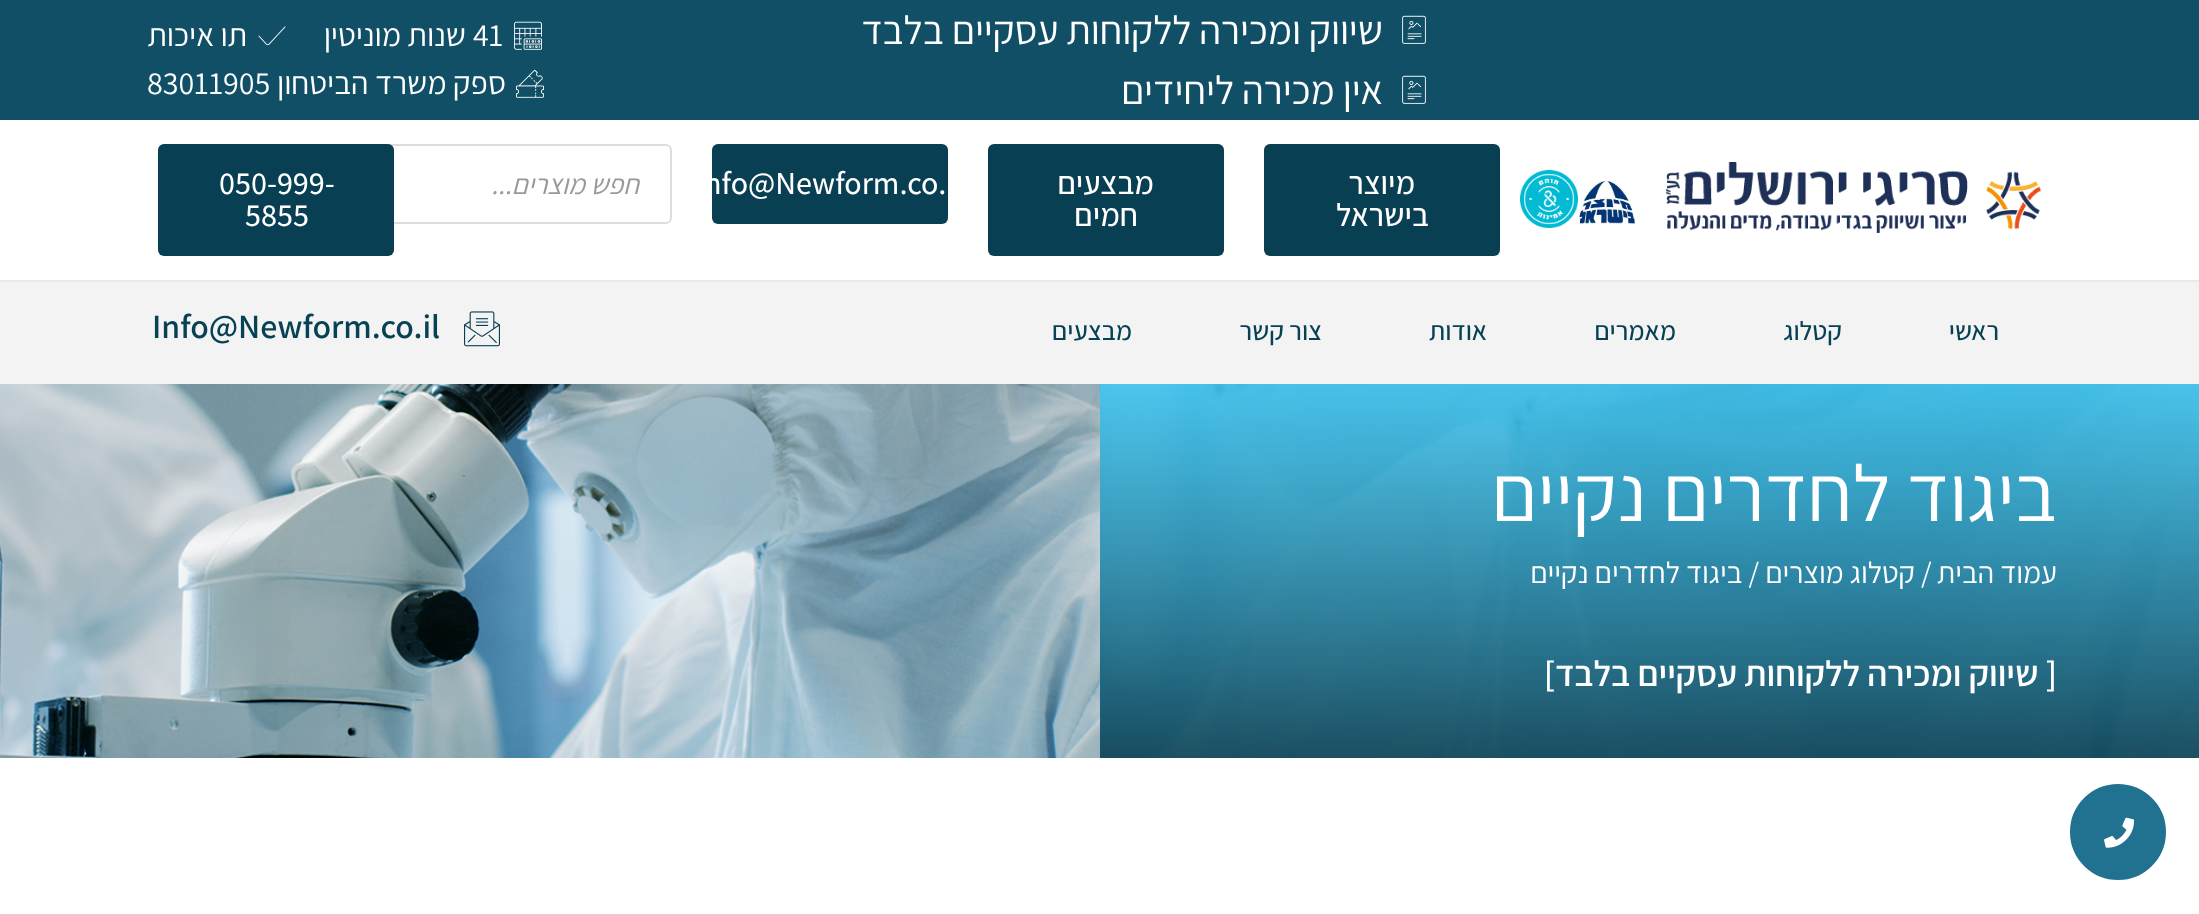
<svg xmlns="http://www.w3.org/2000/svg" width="2199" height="914">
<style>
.a{font:40px Assistant;direction:rtl;fill:#fff}
.b{font:32px Assistant;fill:#fff}
.c{font:32px Assistant;direction:rtl;fill:#fff}
.d{font:500 32px Assistant;direction:rtl;fill:#fff}
.e{font:500 32px Assistant;fill:#fff}
.f{font:italic 28px Assistant;direction:rtl;fill:#999}
.g{font:500 26.5px Assistant;direction:rtl;fill:#064154}
.h{font:600 34px Assistant;fill:#064154}
.i{font:80px Assistant;direction:rtl;fill:#fff}
.j{font:30px Assistant;direction:rtl;fill:#fff}
.k{font:30px Assistant;fill:#fff}
.l{font:600 36px Assistant;direction:rtl;fill:#fff}
</style>
<rect width="100%" height="100%" fill="#fff"/>
<path fill="#114f66" d="M0 0h2199v120H0z"/>
<image href="1.png" x="1402" y="15" width="24" height="29"/>
<image href="1.png" x="1402" y="75" width="24" height="29"/>
<image href="2.png" x="514" y="21" width="28" height="29"/>
<image href="3.png" x="258" y="26" width="28" height="20"/>
<image href="4.png" x="516" y="70" width="28" height="28"/>
<image href="5.png" x="1666" y="162" width="376" height="71"/>
<image href="6.png" x="1578" y="180" width="58" height="44"/>
<image href="7.png" x="1520" y="170" width="58" height="58"/>
<rect fill="#083f53" x="1264" y="144" width="236" height="112" rx="6"/>
<rect fill="#083f53" x="988" y="144" width="236" height="112" rx="6"/>
<rect fill="#083f53" x="712" y="144" width="236" height="80" rx="6"/>
<rect fill="none" stroke="#ddd" stroke-width="2" x="213" y="145" width="458" height="78" rx="5"/>
<rect fill="#083f53" x="158" y="144" width="236" height="112" rx="6"/>
<path fill="#f3f3f3" d="M0 282h2199v102H0z"/>
<path fill="#e9e9e9" d="M0 280h2199v2H0z"/>
<image href="8.png" x="464" y="311" width="36" height="36"/>
<image href="9.png" x="1100" y="384" width="1099" height="374"/>
<image href="10.png" x="0" y="384" width="1100" height="374"/>
<circle fill="#217290" stroke="#fff" stroke-width="6" cx="2118" cy="832" r="51"/>
<image href="11.png" x="2104" y="817" width="31" height="31"/>
<text class="a" x="1383" y="44">שיווק ומכירה ללקוחות עסקיים בלבד</text>
<text class="a" x="1383" y="104">אין מכירה ליחידים</text>
<text class="b" x="473" y="46">41</text>
<text class="c" x="466" y="46">שנות מוניטין</text>
<text class="c" x="247" y="46">תו איכות</text>
<text class="c" x="506" y="94">ספק משרד הביטחון</text>
<text class="b" x="147" y="94">83011905</text>
<text class="d" x="1415" y="194">מיוצר</text>
<text class="d" x="1429" y="226">בישראל</text>
<text class="d" x="1154" y="194">מבצעים</text>
<text class="d" x="1138" y="226">חמים</text>
<text class="e" x="704" y="194">nfo@Newform.co.</text>
<text class="f" x="639" y="194">חפש מוצרים...</text>
<text class="e" x="219" y="194">050-999-</text>
<text class="e" x="245" y="226">5855</text>
<text class="g" x="1999" y="340">ראשי</text>
<text class="g" x="1842" y="340">קטלוג</text>
<text class="g" x="1676" y="340">מאמרים</text>
<text class="g" x="1487" y="340">אודות</text>
<text class="g" x="1322" y="340">צור קשר</text>
<text class="g" x="1132" y="340">מבצעים</text>
<text class="h" x="152" y="338">Info@Newform.co.il</text>
<text class="i" x="2057" y="521">ביגוד לחדרים נקיים</text>
<text class="j" x="2057" y="583">עמוד הבית</text>
<text class="k" x="1921" y="583">/</text>
<text class="j" x="1915" y="583">קטלוג מוצרים</text>
<text class="j" x="1759" y="583">/ ביגוד לחדרים נקיים</text>
<text class="l" x="2057" y="686">[ שיווק ומכירה ללקוחות עסקיים בלבד]</text>
</svg>
